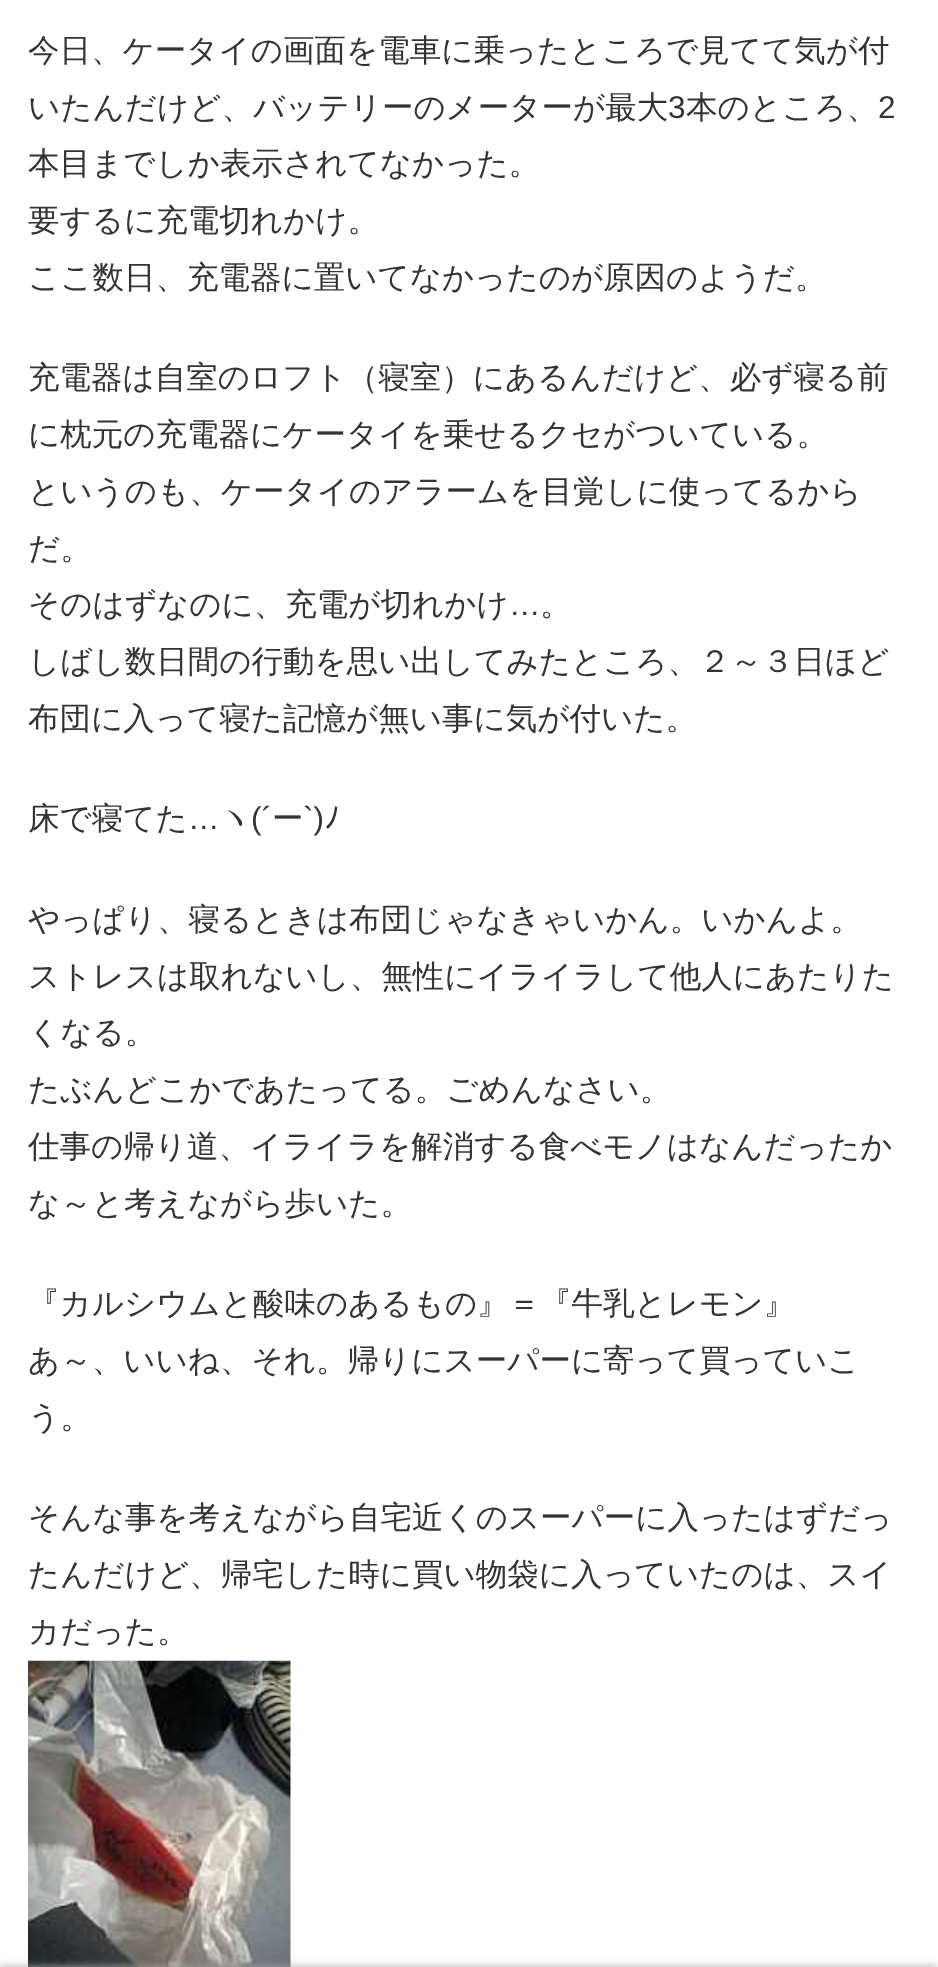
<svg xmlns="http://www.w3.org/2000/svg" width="938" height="1967">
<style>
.a{font:500 31.5px WenQuanYi Zen Hei;fill:#333}
.b{font:31.5px Liberation Sans;fill:#333}
.c{font:31.5px IPAPGothic;fill:#333}
</style>
<rect width="100%" height="100%" fill="#fff"/>
<image href="1.png" x="28" y="1660" width="263" height="307"/>
<path fill="#a9a9a9" filter="blur(4.5px)" d="M0 1967h938v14H0z"/>
<text class="a" x="28" y="61">今日、ケータイの画面を電車に乗ったところで見てて気が付</text>
<text class="a" x="28" y="118">いたんだけど、バッテリーのメーターが最大</text>
<text class="b" x="668" y="118">3</text>
<text class="a" x="686" y="118">本のところ、</text>
<text class="b" x="878" y="118">2</text>
<text class="a" x="28" y="174">本目までしか表示されてなかった。</text>
<text class="a" x="28" y="231">要するに充電切れかけ。</text>
<text class="a" x="28" y="288">ここ数日、充電器に置いてなかったのが原因のようだ。</text>
<text class="a" x="28" y="388">充電器は自室のロフト（寝室）にあるんだけど、必ず寝る前</text>
<text class="a" x="28" y="445">に枕元の充電器にケータイを乗せるクセがついている。</text>
<text class="a" x="28" y="502">というのも、ケータイのアラームを目覚しに使ってるから</text>
<text class="a" x="28" y="559">だ。</text>
<text class="a" x="28" y="615">そのはずなのに、充電が切れかけ</text>
<text class="b" x="509" y="615">…</text>
<text class="a" x="540" y="615">。</text>
<text class="a" x="28" y="672">しばし数日間の行動を思い出してみたところ、２～３日ほど</text>
<text class="a" x="28" y="729">布団に入って寝た記憶が無い事に気が付いた。</text>
<text class="a" x="28" y="829">床で寝てた</text>
<text class="a" x="219" y="829">ヽ</text>
<text class="b" x="251" y="829">(´</text>
<text class="a" x="272" y="829">ー</text>
<text class="b" x="303" y="829">`)</text>
<text class="c" x="324" y="829">ﾉ</text>
<text class="b" x="188" y="829">…</text>
<text class="a" x="28" y="930">やっぱり、寝るときは布団じゃなきゃいかん。いかんよ。</text>
<text class="a" x="28" y="987">ストレスは取れないし、無性にイライラして他人にあたりた</text>
<text class="a" x="28" y="1043">くなる。</text>
<text class="a" x="28" y="1100">たぶんどこかであたってる。ごめんなさい。</text>
<text class="a" x="28" y="1157">仕事の帰り道、イライラを解消する食べモノはなんだったか</text>
<text class="a" x="28" y="1214">な～と考えながら歩いた。</text>
<text class="a" x="28" y="1314">『カルシウムと酸味のあるもの』＝『牛乳とレモン』</text>
<text class="a" x="28" y="1371">あ～、いいね、それ。帰りにスーパーに寄って買っていこ</text>
<text class="a" x="28" y="1428">う。</text>
<text class="a" x="28" y="1528">そんな事を考えながら自宅近くのスーパーに入ったはずだっ</text>
<text class="a" x="28" y="1585">たんだけど、帰宅した時に買い物袋に入っていたのは、スイ</text>
<text class="a" x="28" y="1642">カだった。</text>
</svg>
